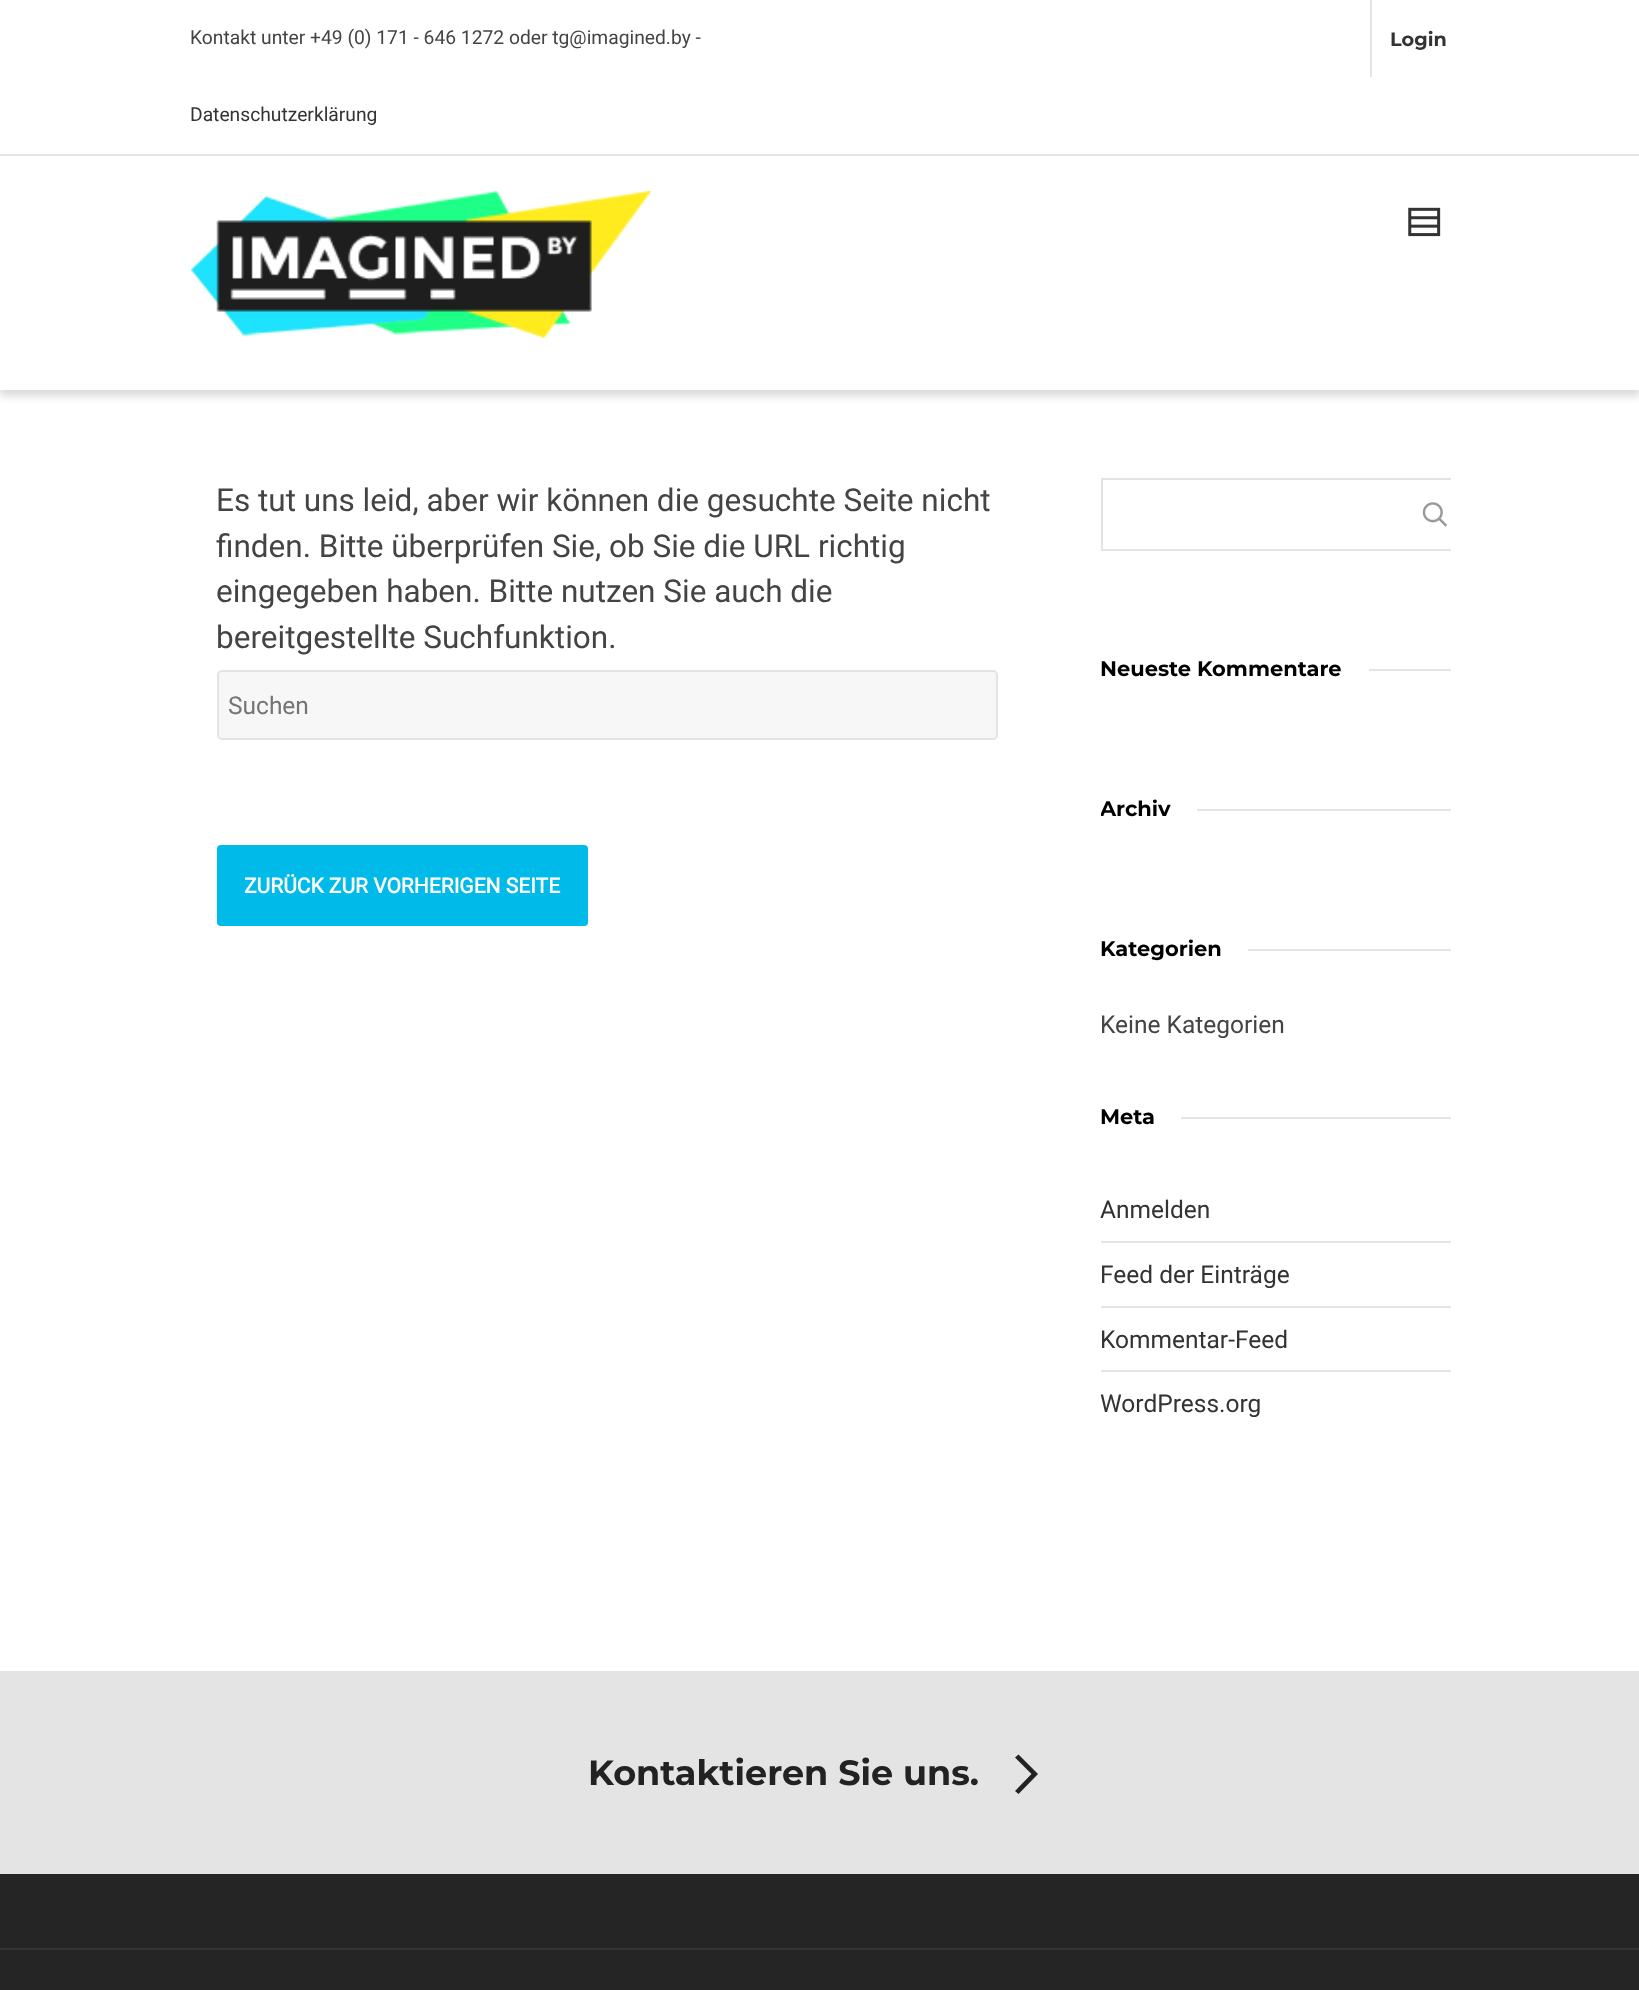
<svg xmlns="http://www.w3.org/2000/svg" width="1639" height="1990">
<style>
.a{font:19.25px Roboto;fill:#444}
.b{font:19.25px Roboto;fill:#333}
.c{font:100 19.25px Montserrat;fill:#333}
.d{font:31.5px Roboto;fill:#444}
.e{font:24.5px Roboto;fill:#757575}
.f{font:bold 21px Roboto;fill:#fff}
.g{font:100 21px Montserrat;fill:#000}
.h{font:24.5px Roboto;fill:#444}
.i{font:24.5px Roboto;fill:#333}
.j{font:100 35px Montserrat;fill:#222}
</style>
<defs>
<clipPath id="clip1"><path d="M191 390h1260v1281H191z"/></clipPath>
<clipPath id="clip2"><path d="M1101 791h350v35H1101z"/></clipPath>
</defs>
<rect width="100%" height="100%" fill="#fff"/>
<path fill="#0000001a" filter="blur(4.5px)" d="M0 5h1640v391H0z"/>
<path fill="#0000000d" filter="blur(4.5px)" d="M0 5h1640v391H0z"/>
<path fill="#fff" d="M0 0h1639v390H0z"/>
<path fill="#e4e4e4" d="M0 154h1639v2H0z"/>
<path fill="#e4e4e4" d="M1370 0h2v77H1370z"/>
<image href="1.png" x="190" y="190" width="461" height="148"/>
<image href="2.png" x="1408" y="207" width="33" height="30"/>
<rect fill="#f7f7f7" stroke="#e4e4e4" stroke-width="2" x="218" y="671" width="779" height="68" rx="4"/>
<rect fill="#00bbea" x="217" y="845" width="371" height="81" rx="4"/>
<g clip-path="url(#clip1)">
<path fill="none" stroke="#e4e4e4" stroke-width="2" d="M1102 479h374v71H1102z"/>
</g>
<image href="3.png" x="1422" y="502" width="25" height="25"/>
<path fill="#e4e4e4" d="M1369 669h82v2H1369z"/>
<path fill="#e4e4e4" d="M1197 809h254v2H1197z"/>
<path fill="#e4e4e4" d="M1248 949h203v2H1248z"/>
<path fill="#e4e4e4" d="M1181 1117h270v2H1181z"/>
<path fill="#e4e4e4" d="M1101 1241h350v2H1101z"/>
<path fill="#e4e4e4" d="M1101 1306h350v2H1101z"/>
<path fill="#e4e4e4" d="M1101 1370h350v2H1101z"/>
<path fill="#e4e4e4" d="M0 1671h1639v203H0z"/>
<path fill="#222" d="M1018.5 1794l-3.5-3l16.5-17l-16.5-16.5l3.5-3l19.5 19.5z"/>
<path fill="#252525" d="M0 1874h1639v74H0z"/>
<path fill="#252525" d="M0 1950h1639v40H0z"/>
<path fill="#333" d="M0 1948h1639v2H0z"/>
<text class="a" x="190" y="44">Kontakt unter +49 (0) 171 - 646 1272 oder tg@imagined.by -</text>
<text class="b" x="190" y="121">Datenschutzerklärung</text>
<text class="c" x="1390" y="46">Login</text>
<text class="d" x="216" y="511">Es tut uns leid, aber wir können die gesuchte Seite nicht</text>
<text class="d" x="216" y="557">finden. Bitte überprüfen Sie, ob Sie die URL richtig</text>
<text class="d" x="216" y="602">eingegeben haben. Bitte nutzen Sie auch die</text>
<text class="d" x="216" y="648">bereitgestellte Suchfunktion.</text>
<text class="e" x="228" y="714">Suchen</text>
<text class="f" x="244" y="893">ZURÜCK ZUR VORHERIGEN SEITE</text>
<text class="g" x="1100" y="676">Neueste Kommentare</text>
<g clip-path="url(#clip2)">
<text class="g" x="1100" y="816">Archiv</text>
</g>
<text class="g" x="1100" y="956">Kategorien</text>
<text class="h" x="1100" y="1033">Keine Kategorien</text>
<text class="g" x="1100" y="1124">Meta</text>
<text class="i" x="1100" y="1218">Anmelden</text>
<text class="i" x="1100" y="1283">Feed der Einträge</text>
<text class="i" x="1100" y="1348">Kommentar-Feed</text>
<text class="i" x="1100" y="1412">WordPress.org</text>
<text class="j" x="588" y="1785">Kontaktieren Sie uns.</text>
</svg>
